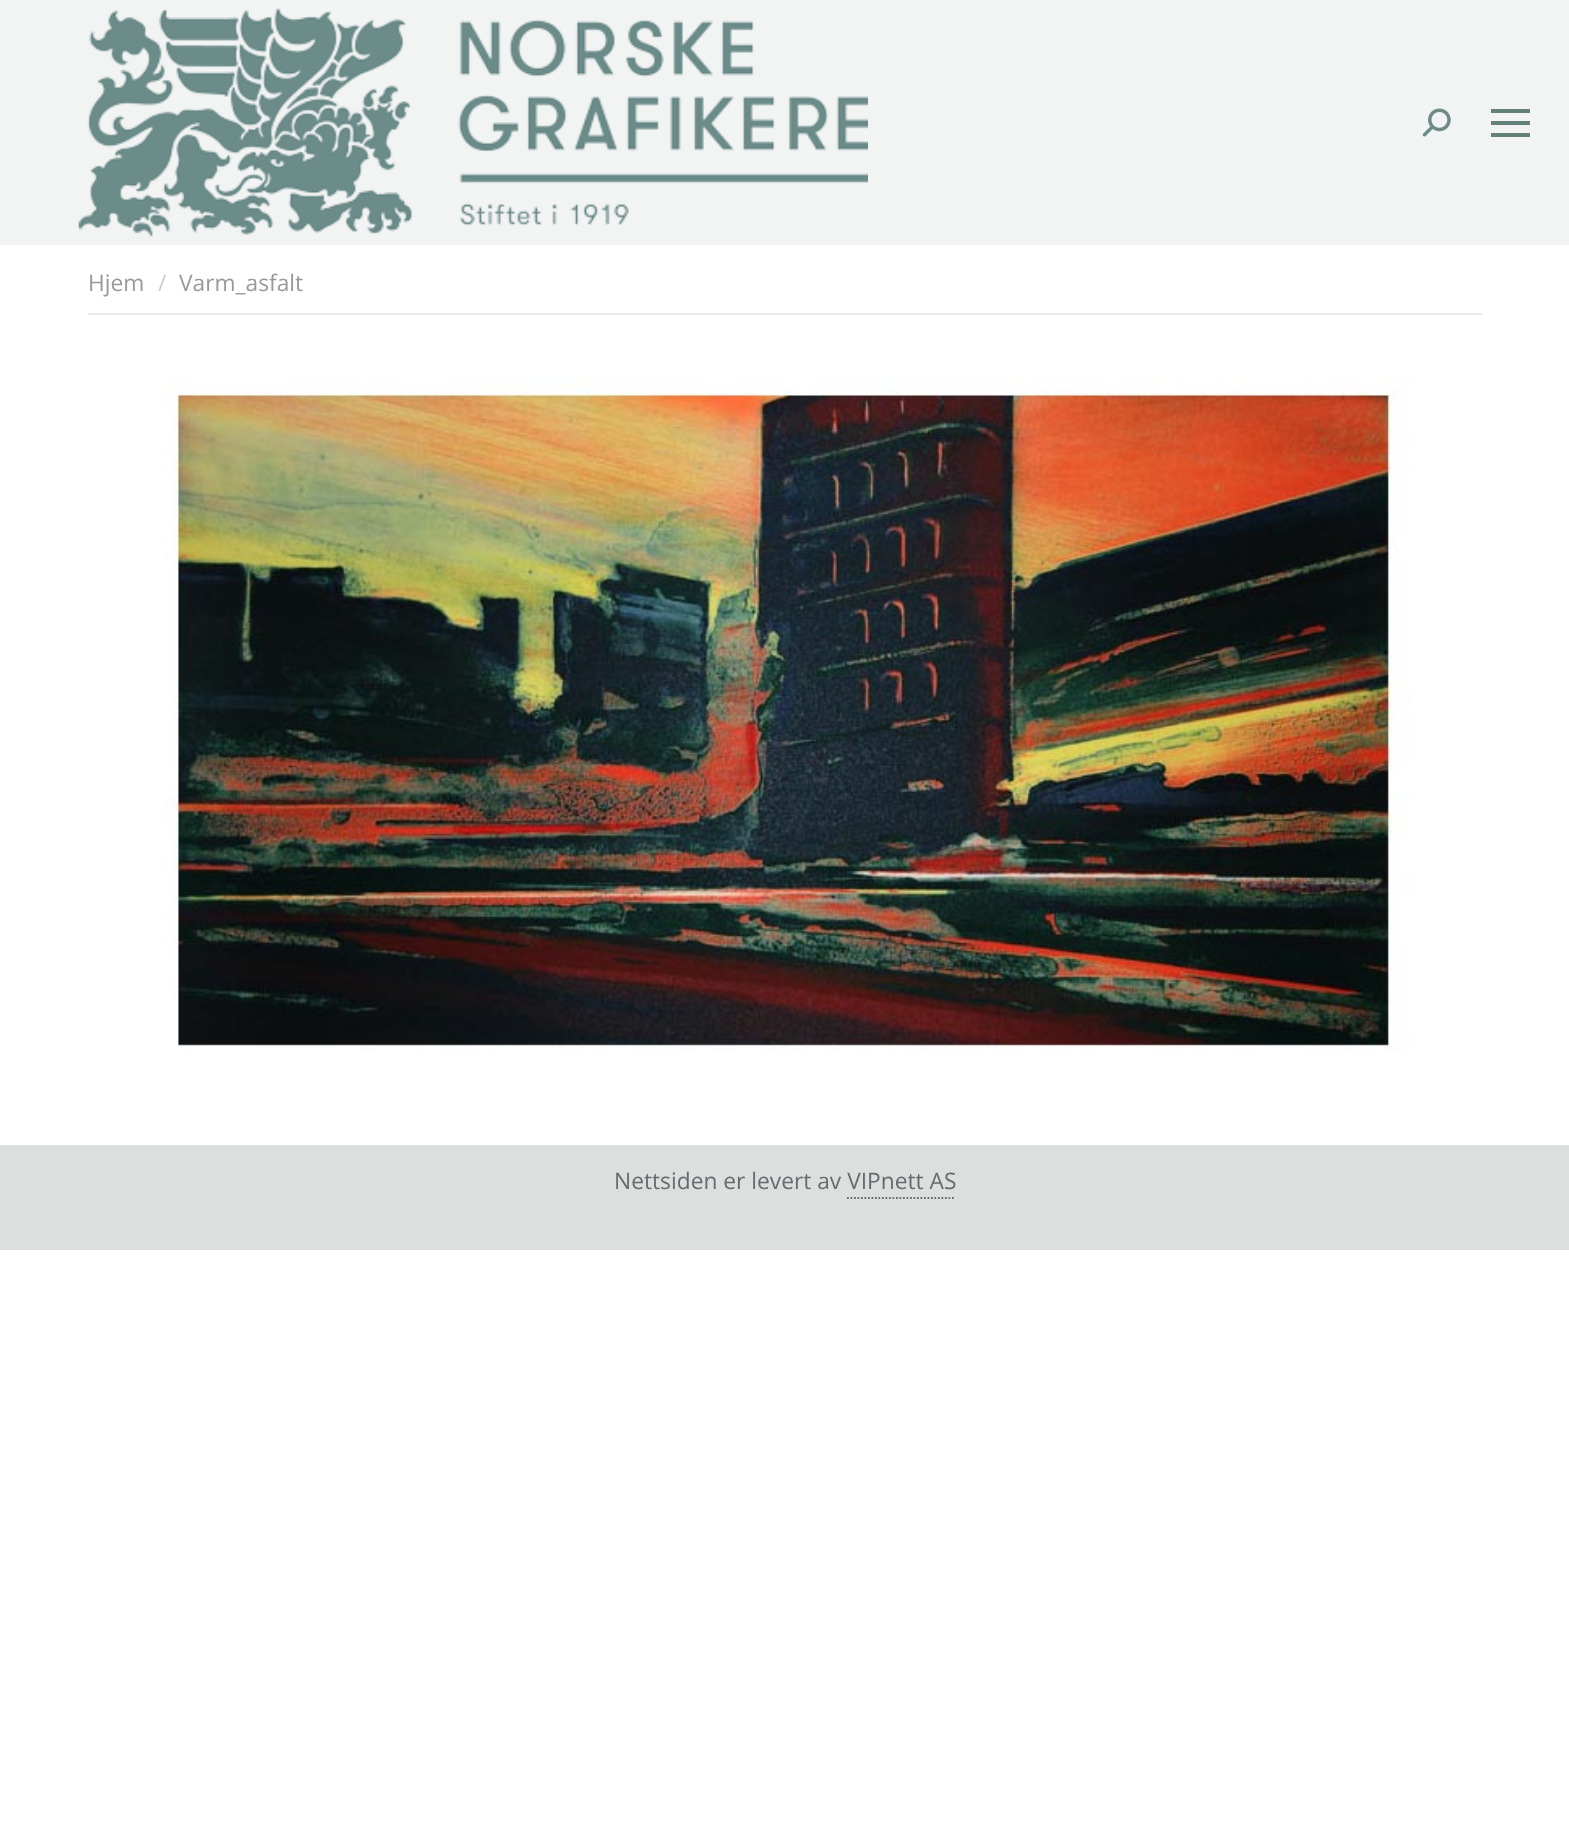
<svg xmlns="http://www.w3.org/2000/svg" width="1569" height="1847">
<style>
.a{font:22.75px Open Sans;fill:#999}
.b{font:22.75px Open Sans;fill:#ccc}
.c{font:22.75px Open Sans;fill:#676b6d}
</style>
<rect width="100%" height="100%" fill="#fff"/>
<path fill="#f2f3f3" d="M0 0h1569v245H0z"/>
<image href="1.png" x="78" y="8" width="790" height="229"/>
<image href="2.png" x="1422" y="108" width="29" height="29"/>
<path fill="#63817b" d="M1491 109h39v4H1491z"/>
<path fill="#63817b" d="M1491 121h39v4H1491z"/>
<path fill="#63817b" d="M1491 133h39v4H1491z"/>
<path fill="#e9e9e9" d="M88 313h1394v2H88z"/>
<image href="3.png" x="166" y="376" width="1245" height="676"/>
<path fill="#dddfdf" d="M0 1145h1569v105H0z"/>
<path fill="none" stroke="#676b6d" stroke-width="1.8" stroke-dasharray="1.75 1.75" d="M847 1198h108.5"/>
<text class="a" x="88" y="291">Hjem</text>
<text class="b" x="158" y="291">/</text>
<text class="a" x="179" y="291">Varm_asfalt</text>
<text class="c" x="614" y="1189">Nettsiden er levert av VIPnett AS</text>
</svg>
